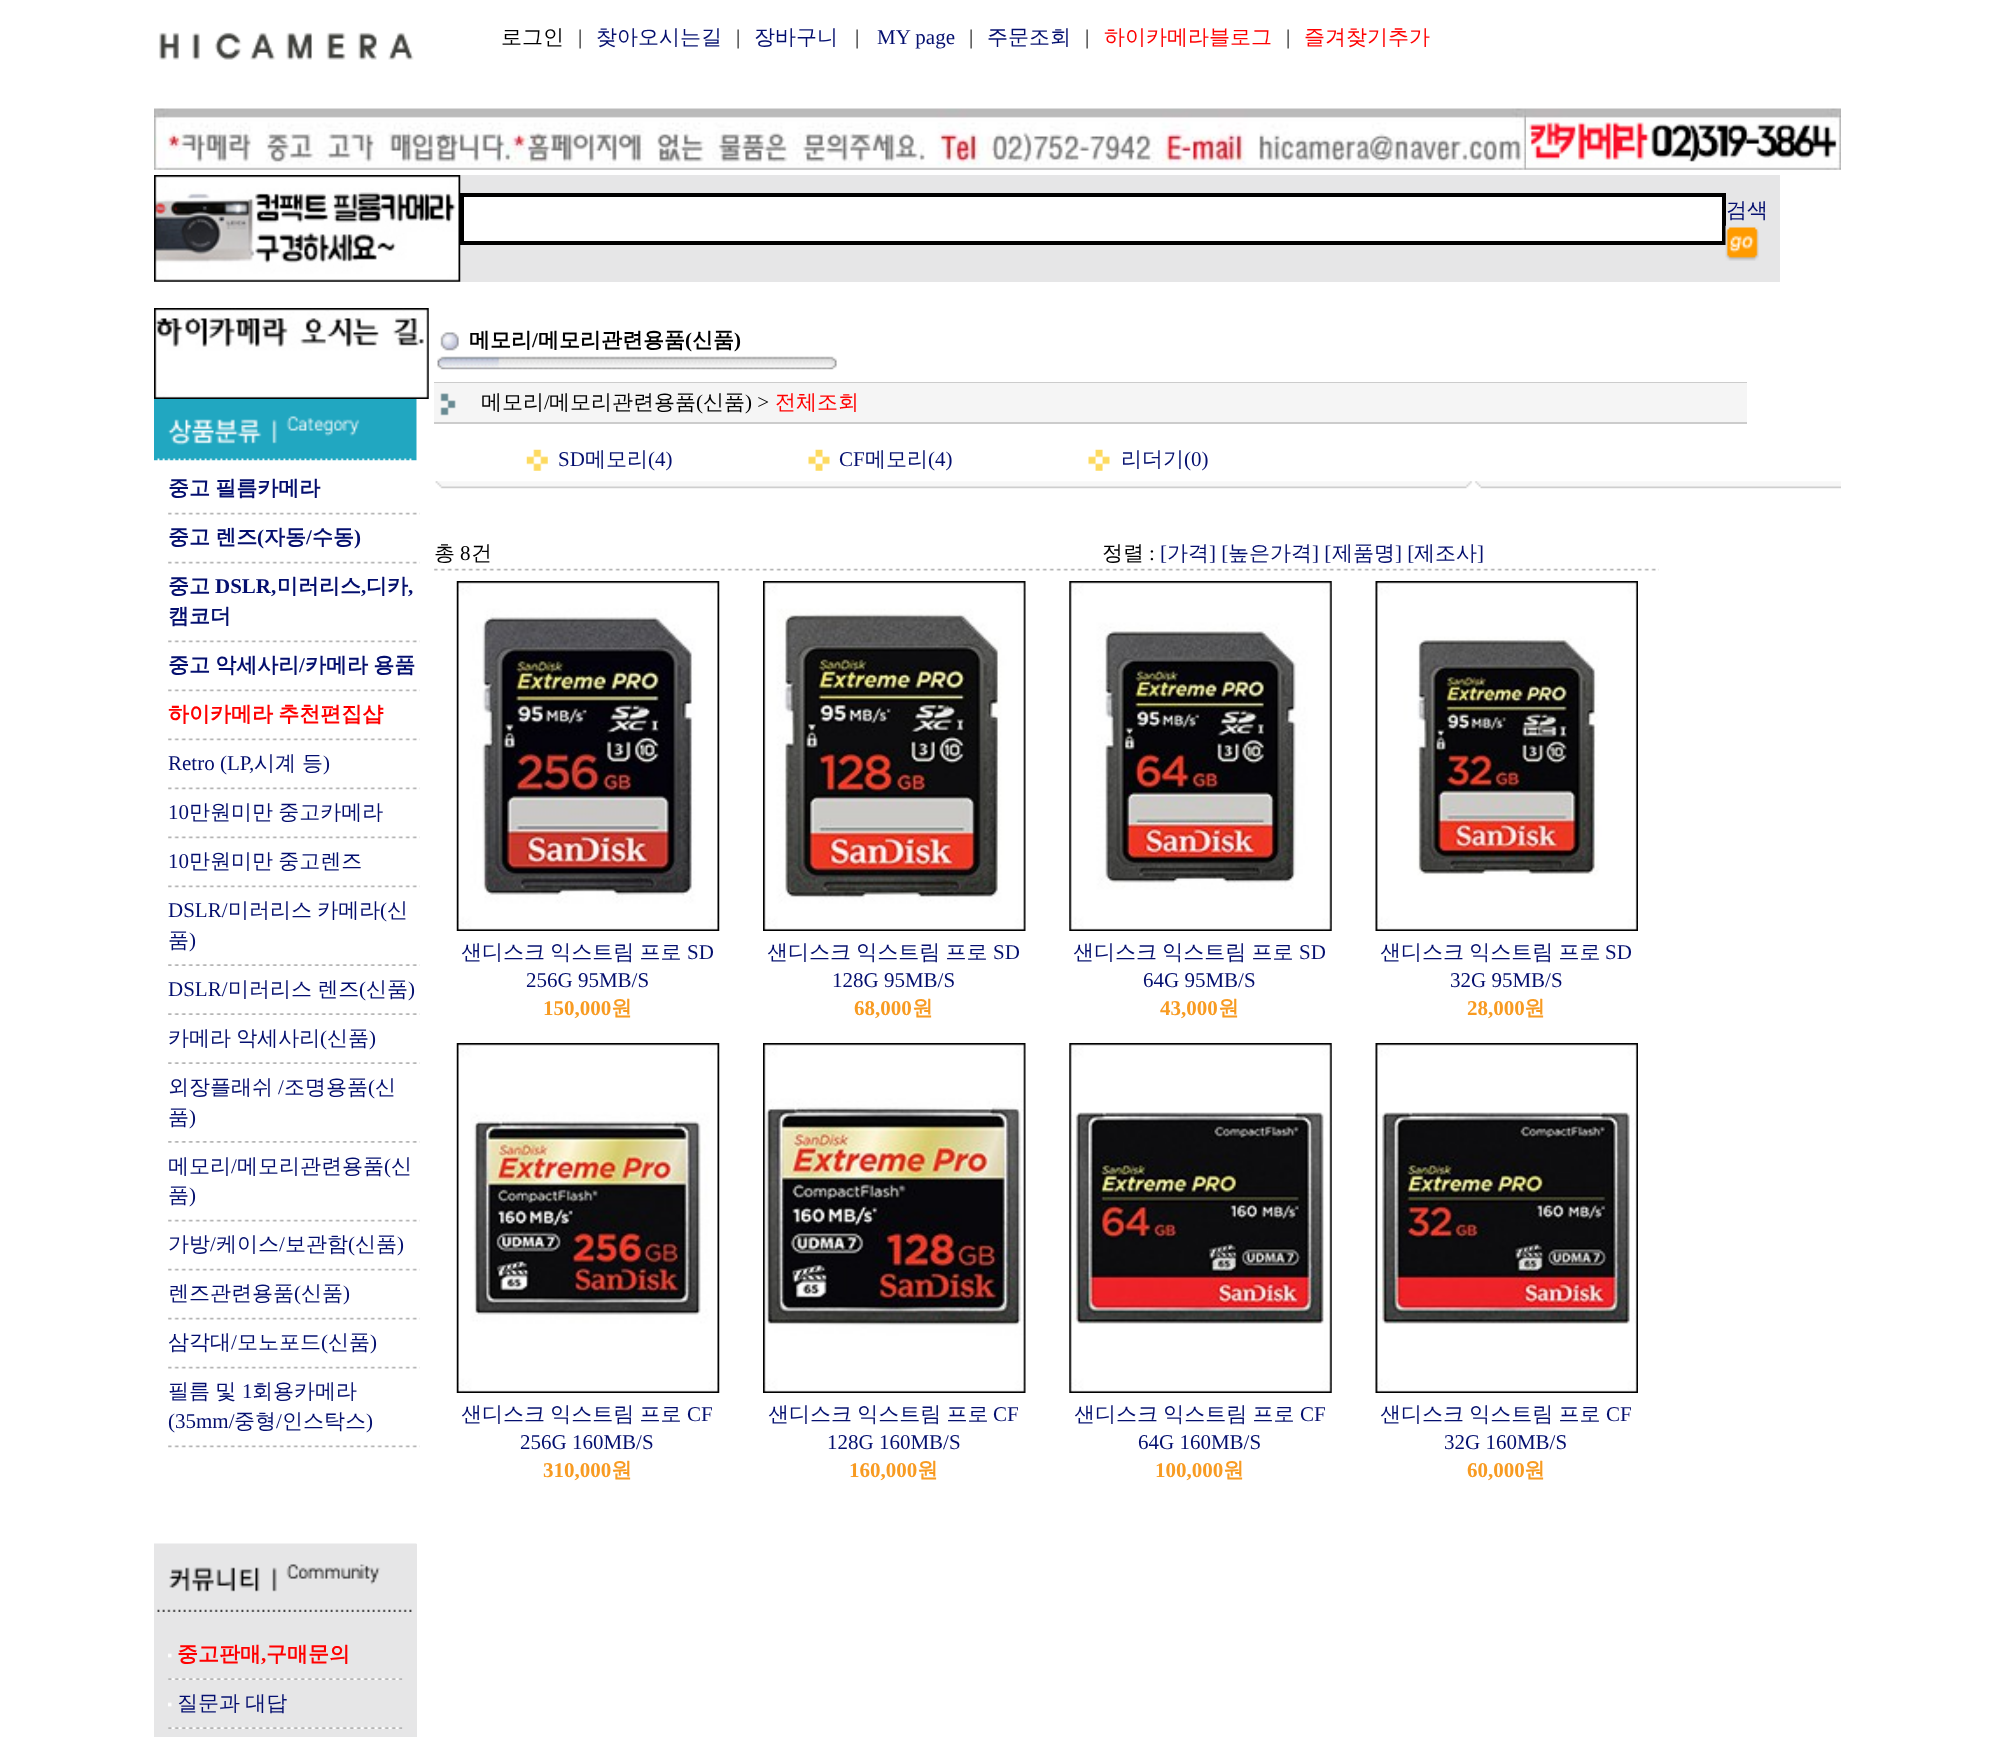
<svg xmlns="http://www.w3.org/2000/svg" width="1995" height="1737">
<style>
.a{font:500 21px WenQuanYi Zen Hei;fill:#000}
.b{font:21px Liberation Serif;fill:#000}
.c{font:500 21px WenQuanYi Zen Hei;fill:#040f6f}
.d{font:21px Liberation Serif;fill:#040f6f}
.e{font:500 21px WenQuanYi Zen Hei;fill:#f00}
.f{font:bold 21px WenQuanYi Zen Hei;fill:#040f6f}
.g{font:bold 21px Liberation Serif;fill:#040f6f}
.h{font:bold 21px WenQuanYi Zen Hei;fill:#f00}
.i{font:bold 21px Liberation Serif;fill:#f00}
.j{font:bold 21px WenQuanYi Zen Hei;fill:#000}
.k{font:bold 21px Liberation Serif;fill:#000}
.l{font:bold 21px Liberation Serif;fill:#f89b22}
.m{font:bold 21px WenQuanYi Zen Hei;fill:#f89b22}
</style>
<rect width="100%" height="100%" fill="#fff"/>
<image href="1.png" x="159" y="32" width="255" height="28"/>
<image href="2.png" x="154" y="108" width="1372" height="62"/>
<image href="3.png" x="1526" y="108" width="315" height="62"/>
<path fill="#e6e6e7" d="M154 175h1626v107H154z"/>
<image href="4.png" x="154" y="175" width="307" height="107"/>
<path fill="#fff" stroke="#000" stroke-width="4" d="M462 195h1262v48H462z"/>
<image href="5.png" x="1725" y="225" width="34" height="36"/>
<image href="6.png" x="154" y="308" width="275" height="91"/>
<image href="7.png" x="154" y="399" width="263" height="62"/>
<image href="8.png" x="168" y="512" width="252" height="3"/>
<image href="8.png" x="168" y="561" width="252" height="3"/>
<image href="9.png" x="168" y="640" width="252" height="3"/>
<image href="9.png" x="168" y="689" width="252" height="3"/>
<image href="9.png" x="168" y="738" width="252" height="3"/>
<image href="9.png" x="168" y="787" width="252" height="3"/>
<image href="9.png" x="168" y="836" width="252" height="3"/>
<image href="9.png" x="168" y="885" width="252" height="3"/>
<image href="10.png" x="168" y="964" width="252" height="2"/>
<image href="10.png" x="168" y="1013" width="252" height="2"/>
<image href="10.png" x="168" y="1062" width="252" height="2"/>
<image href="11.png" x="168" y="1141" width="252" height="2"/>
<image href="8.png" x="168" y="1219" width="252" height="3"/>
<image href="8.png" x="168" y="1268" width="252" height="3"/>
<image href="8.png" x="168" y="1317" width="252" height="3"/>
<image href="8.png" x="168" y="1366" width="252" height="3"/>
<image href="9.png" x="168" y="1445" width="252" height="3"/>
<path fill="#e6e6e7" d="M154 1544h263v193H154z"/>
<image href="12.png" x="154" y="1543" width="263" height="69"/>
<image href="13.png" x="168" y="1653" width="4" height="5"/>
<image href="14.png" x="168" y="1678" width="235" height="2"/>
<image href="13.png" x="168" y="1702" width="4" height="5"/>
<image href="14.png" x="168" y="1727" width="235" height="2"/>
<image href="15.png" x="440" y="332" width="19" height="19"/>
<image href="16.png" x="437" y="356" width="400" height="14"/>
<path fill="#ccc" d="M434 382h1313v1H434z"/>
<path fill="#f5f5f5" d="M434 383h1313v39H434z"/>
<image href="17.png" x="440" y="393" width="16" height="23"/>
<path fill="#ccc" d="M434 422h1313v2H434z"/>
<image href="18.png" x="526" y="449" width="22" height="22"/>
<image href="19.png" x="808" y="449" width="22" height="22"/>
<image href="20.png" x="1088" y="449" width="22" height="22"/>
<image href="21.png" x="435" y="481" width="1406" height="8"/>
<image href="22.png" x="434" y="568" width="1225" height="3"/>
<image href="23.png" x="456" y="581" width="264" height="350"/>
<image href="24.png" x="763" y="581" width="263" height="350"/>
<image href="25.png" x="1069" y="581" width="263" height="350"/>
<image href="26.png" x="1375" y="581" width="263" height="350"/>
<image href="27.png" x="456" y="1043" width="264" height="350"/>
<image href="28.png" x="763" y="1043" width="263" height="350"/>
<image href="29.png" x="1069" y="1043" width="263" height="350"/>
<image href="30.png" x="1375" y="1043" width="263" height="350"/>
<text class="a" x="501" y="44">로그인</text>
<text class="b" x="578" y="44">|</text>
<text class="c" x="596" y="44">찾아오시는길</text>
<text class="b" x="736" y="44">|</text>
<text class="c" x="754" y="44">장바구니</text>
<text class="b" x="855" y="44">|</text>
<text class="d" x="877" y="44">MY page</text>
<text class="b" x="969" y="44">|</text>
<text class="c" x="987" y="44">주문조회</text>
<text class="b" x="1085" y="44">|</text>
<text class="e" x="1104" y="44">하이카메라블로그</text>
<text class="b" x="1286" y="44">|</text>
<text class="e" x="1304" y="44">즐겨찾기추가</text>
<text class="c" x="1726" y="217">검색</text>
<text class="f" x="168" y="495" word-spacing="-1">중고 필름카메라</text>
<text class="f" x="168" y="544" word-spacing="-1">중고 렌즈</text>
<text class="g" x="257" y="544">(</text>
<text class="f" x="264" y="544">자동</text>
<text class="g" x="306" y="544">/</text>
<text class="f" x="312" y="544">수동</text>
<text class="g" x="354" y="544">)</text>
<text class="f" x="168" y="593">중고</text>
<text class="g" x="215" y="593">DSLR,</text>
<text class="f" x="277" y="593">미러리스</text>
<text class="g" x="361" y="593">,</text>
<text class="f" x="366" y="593">디카</text>
<text class="g" x="408" y="593">,</text>
<text class="f" x="168" y="623">캠코더</text>
<text class="f" x="168" y="672" word-spacing="-1">중고 악세사리</text>
<text class="g" x="299" y="672">/</text>
<text class="f" x="305" y="672" word-spacing="-1">카메라 용품</text>
<text class="h" x="168" y="721" word-spacing="-1">하이카메라 추천편집샵</text>
<text class="d" x="168" y="770">Retro (LP,</text>
<text class="c" x="254" y="770">시계</text>
<text class="c" x="302" y="770">등</text>
<text class="d" x="323" y="770">)</text>
<text class="d" x="168" y="819">10</text>
<text class="c" x="189" y="819" word-spacing="-1">만원미만 중고카메라</text>
<text class="d" x="168" y="868">10</text>
<text class="c" x="189" y="868" word-spacing="-1">만원미만 중고렌즈</text>
<text class="d" x="168" y="917">DSLR/</text>
<text class="c" x="228" y="917" word-spacing="-1">미러리스 카메라</text>
<text class="d" x="380" y="917">(</text>
<text class="c" x="387" y="917">신</text>
<text class="c" x="168" y="947">품</text>
<text class="d" x="189" y="947">)</text>
<text class="d" x="168" y="996">DSLR/</text>
<text class="c" x="228" y="996" word-spacing="-1">미러리스 렌즈</text>
<text class="d" x="359" y="996">(</text>
<text class="c" x="366" y="996">신품</text>
<text class="d" x="408" y="996">)</text>
<text class="c" x="168" y="1045" word-spacing="-1">카메라 악세사리</text>
<text class="d" x="320" y="1045">(</text>
<text class="c" x="327" y="1045">신품</text>
<text class="d" x="369" y="1045">)</text>
<text class="c" x="168" y="1094">외장플래쉬</text>
<text class="d" x="278" y="1094">/</text>
<text class="c" x="284" y="1094">조명용품</text>
<text class="d" x="368" y="1094">(</text>
<text class="c" x="375" y="1094">신</text>
<text class="c" x="168" y="1124">품</text>
<text class="d" x="189" y="1124">)</text>
<text class="c" x="168" y="1173">메모리</text>
<text class="d" x="231" y="1173">/</text>
<text class="c" x="237" y="1173">메모리관련용품</text>
<text class="d" x="384" y="1173">(</text>
<text class="c" x="391" y="1173">신</text>
<text class="c" x="168" y="1202">품</text>
<text class="d" x="189" y="1202">)</text>
<text class="c" x="168" y="1251">가방</text>
<text class="d" x="210" y="1251">/</text>
<text class="c" x="216" y="1251">케이스</text>
<text class="d" x="279" y="1251">/</text>
<text class="c" x="285" y="1251">보관함</text>
<text class="d" x="348" y="1251">(</text>
<text class="c" x="355" y="1251">신품</text>
<text class="d" x="397" y="1251">)</text>
<text class="c" x="168" y="1300">렌즈관련용품</text>
<text class="d" x="294" y="1300">(</text>
<text class="c" x="301" y="1300">신품</text>
<text class="d" x="343" y="1300">)</text>
<text class="c" x="168" y="1349">삼각대</text>
<text class="d" x="231" y="1349">/</text>
<text class="c" x="237" y="1349">모노포드</text>
<text class="d" x="321" y="1349">(</text>
<text class="c" x="328" y="1349">신품</text>
<text class="d" x="370" y="1349">)</text>
<text class="c" x="168" y="1398" word-spacing="-1">필름 및</text>
<text class="d" x="242" y="1398">1</text>
<text class="c" x="252" y="1398">회용카메라</text>
<text class="d" x="168" y="1428">(35mm/</text>
<text class="c" x="234" y="1428">중형</text>
<text class="d" x="276" y="1428">/</text>
<text class="c" x="282" y="1428">인스탁스</text>
<text class="d" x="366" y="1428">)</text>
<text class="h" x="177" y="1661">중고판매</text>
<text class="h" x="266" y="1661">구매문의</text>
<text class="i" x="261" y="1661">,</text>
<text class="c" x="177" y="1710" word-spacing="-1">질문과 대답</text>
<text class="j" x="469" y="347">메모리</text>
<text class="k" x="532" y="347">/</text>
<text class="j" x="538" y="347">메모리관련용품</text>
<text class="k" x="685" y="347">(</text>
<text class="j" x="692" y="347">신품</text>
<text class="k" x="734" y="347">)</text>
<text class="a" x="481" y="409">메모리</text>
<text class="b" x="544" y="409">/</text>
<text class="a" x="549" y="409">메모리관련용품</text>
<text class="b" x="696" y="409">(</text>
<text class="a" x="703" y="409">신품</text>
<text class="b" x="745" y="409">) &gt;</text>
<text class="e" x="775" y="409">전체조회</text>
<text class="d" x="558" y="466">SD</text>
<text class="c" x="585" y="466">메모리</text>
<text class="d" x="648" y="466">(4)</text>
<text class="d" x="839" y="466">CF</text>
<text class="c" x="865" y="466">메모리</text>
<text class="d" x="928" y="466">(4)</text>
<text class="c" x="1121" y="466">리더기</text>
<text class="d" x="1184" y="466">(0)</text>
<text class="a" x="434" y="560">총</text>
<text class="b" x="460" y="560">8</text>
<text class="a" x="471" y="560">건</text>
<text class="a" x="1102" y="560">정렬</text>
<text class="b" x="1149" y="560">:</text>
<text class="d" x="1160" y="560">[</text>
<text class="c" x="1167" y="560">가격</text>
<text class="d" x="1209" y="560">] [</text>
<text class="c" x="1228" y="560">높은가격</text>
<text class="d" x="1312" y="560">] [</text>
<text class="c" x="1332" y="560">제품명</text>
<text class="d" x="1395" y="560">] [</text>
<text class="c" x="1414" y="560">제조사</text>
<text class="d" x="1477" y="560">]</text>
<text class="c" x="461" y="959" word-spacing="-1">샌디스크 익스트림 프로</text>
<text class="d" x="687" y="959">SD</text>
<text class="d" x="526" y="987">256G 95MB/S</text>
<text class="l" x="543" y="1015">150,000</text>
<text class="m" x="611" y="1015">원</text>
<text class="c" x="767" y="959" word-spacing="-1">샌디스크 익스트림 프로</text>
<text class="d" x="993" y="959">SD</text>
<text class="d" x="832" y="987">128G 95MB/S</text>
<text class="l" x="854" y="1015">68,000</text>
<text class="m" x="912" y="1015">원</text>
<text class="c" x="1073" y="959" word-spacing="-1">샌디스크 익스트림 프로</text>
<text class="d" x="1299" y="959">SD</text>
<text class="d" x="1143" y="987">64G 95MB/S</text>
<text class="l" x="1160" y="1015">43,000</text>
<text class="m" x="1218" y="1015">원</text>
<text class="c" x="1380" y="959" word-spacing="-1">샌디스크 익스트림 프로</text>
<text class="d" x="1605" y="959">SD</text>
<text class="d" x="1450" y="987">32G 95MB/S</text>
<text class="l" x="1467" y="1015">28,000</text>
<text class="m" x="1524" y="1015">원</text>
<text class="c" x="461" y="1421" word-spacing="-1">샌디스크 익스트림 프로</text>
<text class="d" x="687" y="1421">CF</text>
<text class="d" x="520" y="1449">256G 160MB/S</text>
<text class="l" x="543" y="1477">310,000</text>
<text class="m" x="611" y="1477">원</text>
<text class="c" x="768" y="1421" word-spacing="-1">샌디스크 익스트림 프로</text>
<text class="d" x="993" y="1421">CF</text>
<text class="d" x="827" y="1449">128G 160MB/S</text>
<text class="l" x="849" y="1477">160,000</text>
<text class="m" x="917" y="1477">원</text>
<text class="c" x="1074" y="1421" word-spacing="-1">샌디스크 익스트림 프로</text>
<text class="d" x="1300" y="1421">CF</text>
<text class="d" x="1138" y="1449">64G 160MB/S</text>
<text class="l" x="1155" y="1477">100,000</text>
<text class="m" x="1223" y="1477">원</text>
<text class="c" x="1380" y="1421" word-spacing="-1">샌디스크 익스트림 프로</text>
<text class="d" x="1606" y="1421">CF</text>
<text class="d" x="1444" y="1449">32G 160MB/S</text>
<text class="l" x="1467" y="1477">60,000</text>
<text class="m" x="1524" y="1477">원</text>
</svg>
